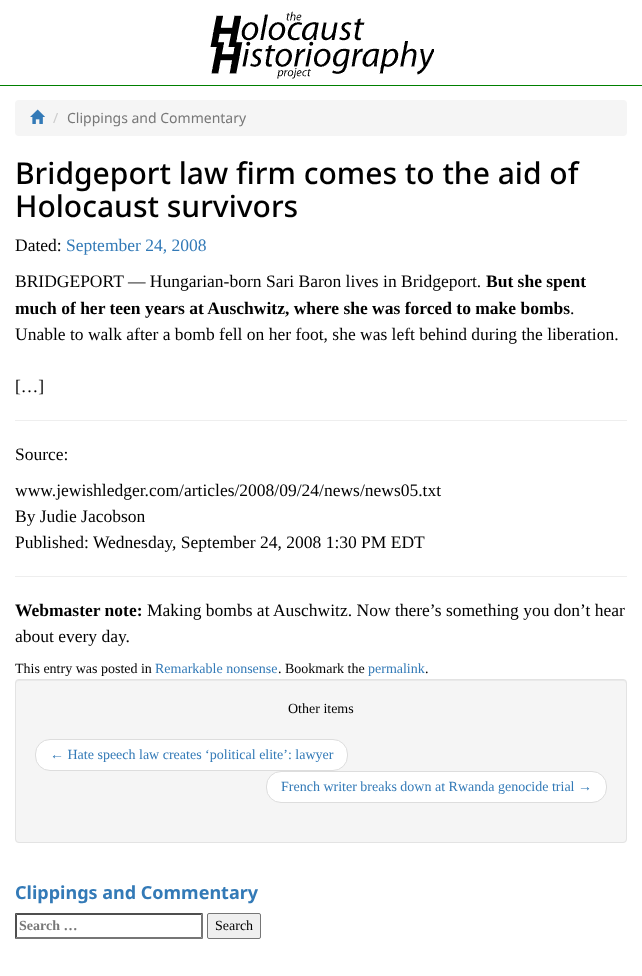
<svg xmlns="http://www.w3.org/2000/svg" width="642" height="976">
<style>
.a{font:14px Noto Sans;fill:#ccc}
.b{font:14px Noto Sans;fill:#777}
.c{font:500 30px Noto Sans;fill:#000}
.d{font:17.5px Liberation Serif;fill:#000}
.e{font:17.5px Liberation Serif;fill:#337ab7}
.f{font:bold 17.5px Liberation Serif;fill:#000}
.g{font:14px Liberation Serif;fill:#000}
.h{font:14px Liberation Serif;fill:#337ab7}
.i{font:bold 18px Noto Sans;fill:#337ab7}
.j{font:bold 14px Liberation Serif;fill:#777}
</style>
<rect width="100%" height="100%" fill="#fff"/>
<path fill="#008000" d="M0 85h642v1H0z"/>
<image href="1.png" x="210" y="11" width="224" height="68"/>
<rect fill="#f5f5f5" x="15" y="100" width="612" height="36" rx="4"/>
<image href="2.png" x="30" y="109" width="15" height="15"/>
<path fill="#eee" d="M15 420h612v1H15z"/>
<path fill="#eee" d="M15 576h612v1H15z"/>
<rect fill="#f5f5f5" x="15" y="679" width="612" height="164" rx="4"/>
<path fill="#e9e9e9" d="M19 681h604c2 0 3 1 3 3v-1c0-2-1-3-3-3h-604c-2 0-3 1-3 3v1c0-2 1-3 3-3z"/>
<rect fill="none" stroke="#e3e3e3" x="15.5" y="679.5" width="611" height="163" rx="3.5"/>
<rect fill="#fff" stroke="#ddd" x="35.5" y="739.5" width="312" height="31" rx="14.5"/>
<rect fill="#fff" stroke="#ddd" x="266.5" y="771.5" width="340" height="31" rx="14.5"/>
<path fill="#4f4f4f" d="M15 913h188l-2 2h-184z"/>
<path fill="#767676" d="M203 913v26l-2-2v-22z"/>
<path fill="#767676" d="M203 939h-188l2-2h184z"/>
<path fill="#4f4f4f" d="M15 939v-26l2 2v22z"/>
<rect fill="#efefef" stroke="#767676" x="207.5" y="913.5" width="53" height="25" rx="1.5"/>
<text class="a" x="53" y="123">/</text>
<text class="b" x="67" y="123">Clippings and Commentary</text>
<text class="c" x="15" y="184">Bridgeport law firm comes to the aid of</text>
<text class="c" x="15" y="217">Holocaust survivors</text>
<text class="d" x="15" y="251">Dated:</text>
<text class="e" x="66" y="251">September 24, 2008</text>
<text class="d" x="15" y="287">BRIDGEPORT — Hungarian-born Sari Baron lives in Bridgeport.</text>
<text class="f" x="486" y="287">But she spent</text>
<text class="f" x="15" y="314">much of her teen years at Auschwitz, where she was forced to make bombs</text>
<text class="d" x="570" y="314">.</text>
<text class="d" x="15" y="340">Unable to walk after a bomb fell on her foot, she was left behind during the liberation.</text>
<text class="d" x="15" y="392">[…]</text>
<text class="d" x="15" y="460">Source:</text>
<text class="d" x="15" y="496">www.jewishledger.com/articles/2008/09/24/news/news05.txt</text>
<text class="d" x="15" y="522">By Judie Jacobson</text>
<text class="d" x="15" y="548">Published: Wednesday, September 24, 2008 1:30 PM EDT</text>
<text class="f" x="15" y="616">Webmaster note:</text>
<text class="d" x="147" y="616">Making bombs at Auschwitz. Now there’s something you don’t hear</text>
<text class="d" x="15" y="642">about every day.</text>
<text class="g" x="15" y="673">This entry was posted in</text>
<text class="h" x="155" y="673">Remarkable nonsense</text>
<text class="g" x="278" y="673">. Bookmark the</text>
<text class="h" x="368" y="673">permalink</text>
<text class="g" x="425" y="673">.</text>
<text class="g" x="288" y="713">Other items</text>
<text class="h" x="50" y="759">← Hate speech law creates ‘political elite’: lawyer</text>
<text class="h" x="281" y="791">French writer breaks down at Rwanda genocide trial →</text>
<text class="i" x="15" y="899">Clippings and Commentary</text>
<text class="j" x="19" y="930">Search …</text>
<text class="g" x="215" y="930">Search</text>
</svg>
